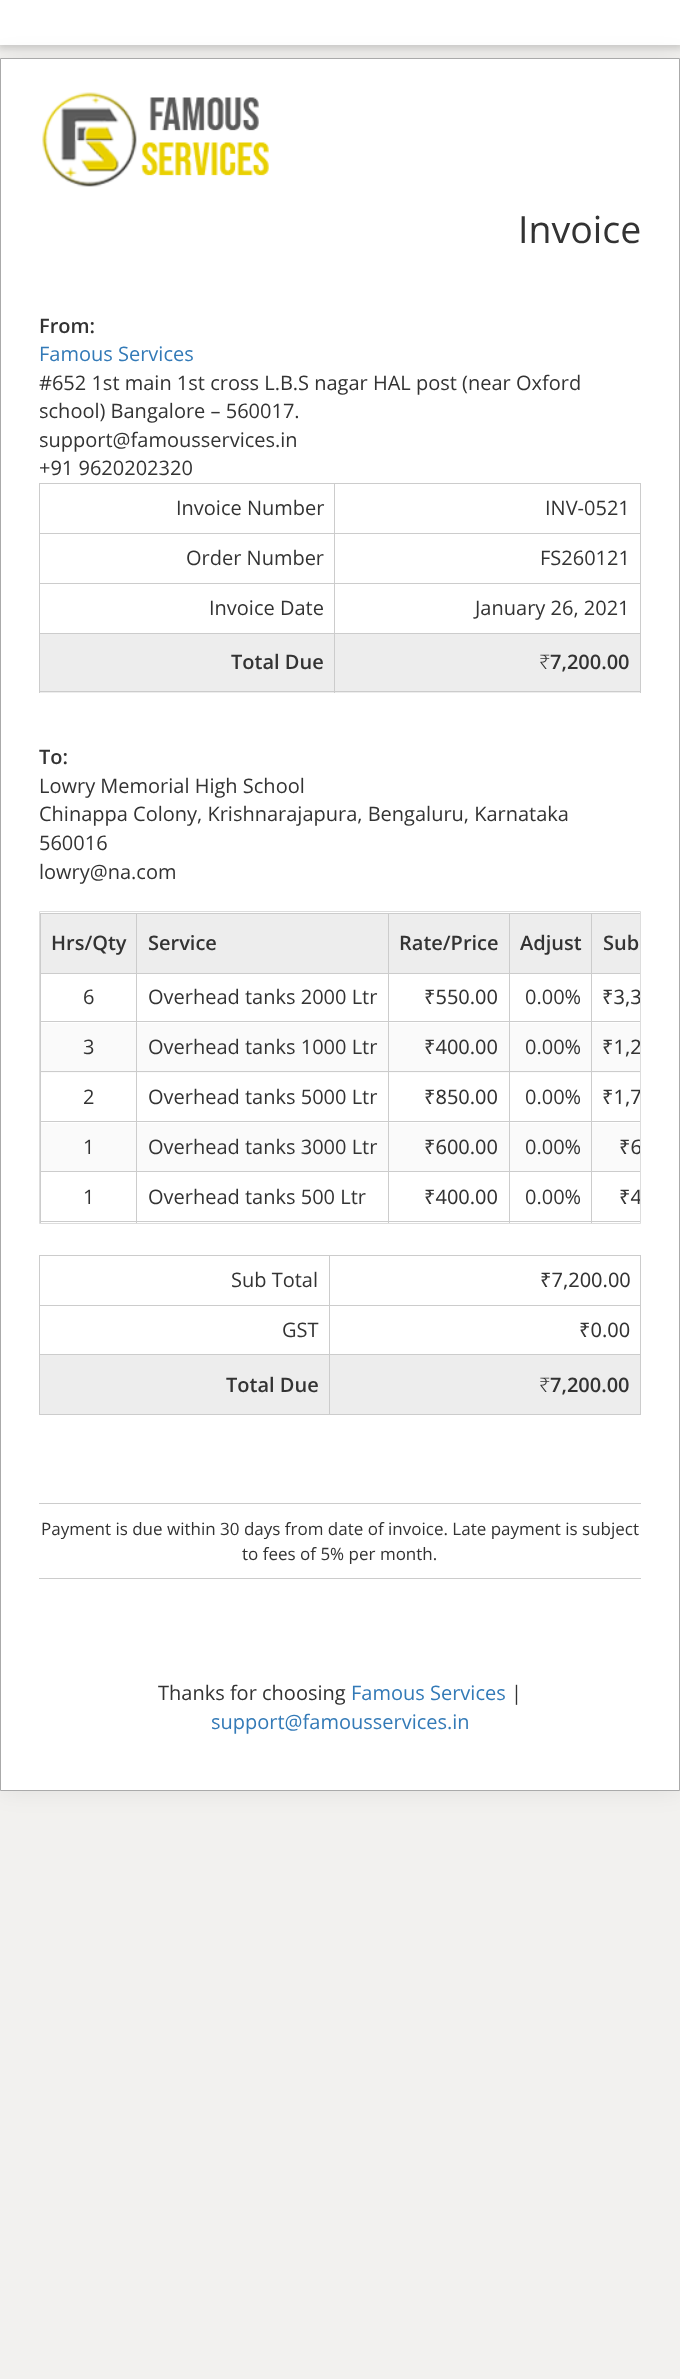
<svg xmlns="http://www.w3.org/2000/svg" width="680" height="2379">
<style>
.a{font:37.5px Open Sans;fill:#333}
.b{font:600 20px Open Sans;fill:#333}
.c{font:20px Open Sans;fill:#337ab7}
.d{font:20px Open Sans;fill:#333}
.e{font:300 20px Noto Sans;fill:#333}
.f{font:20px Noto Sans;fill:#333}
.g{font:17px Open Sans;fill:#333}
</style>
<defs>
<clipPath id="clip1"><path d="M40 913h600v310H40z"/></clipPath>
</defs>
<rect width="100%" height="100%" fill="#f2f1ef"/>
<path fill="#00000026" filter="blur(3px)" d="M-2 -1h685v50H-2z"/>
<path fill="#fff" d="M0 0h680v45H0z"/>
<path fill="#00000012" filter="blur(12.5px)" d="M0 58h680v1733H0z"/>
<path fill="#fff" stroke="#aaa" d="M0.5 58.5h679v1732H0.5z"/>
<image href="1.png" x="42" y="92" width="227" height="95"/>
<path fill="#ccc" d="M39 483h602v1H39z"/>
<path fill="#ccc" d="M640 483h1v210H640z"/>
<path fill="#ededed" d="M40 634h294v59H40z"/>
<path fill="#ededed" d="M335 634h305v59H335z"/>
<path fill="#ccc" d="M39 691h602v1H39z"/>
<path fill="#ccc" d="M39 483h1v210H39z"/>
<path fill="#ccc" d="M334 533h307v1H334z"/>
<path fill="#ccc" d="M334 583h307v1H334z"/>
<path fill="#ccc" d="M334 633h307v1H334z"/>
<path fill="#ccc" d="M334 633h1v60H334z"/>
<path fill="#ccc" d="M39 633h296v1H39z"/>
<path fill="#ccc" d="M334 583h1v51H334z"/>
<path fill="#ccc" d="M39 583h296v1H39z"/>
<path fill="#ccc" d="M334 533h1v51H334z"/>
<path fill="#ccc" d="M39 533h296v1H39z"/>
<path fill="#ccc" d="M334 483h1v51H334z"/>
<path fill="none" stroke="#ddd" d="M39.5 911.5h601v312H39.5z"/>
<path fill="#ccc" d="M40 913h600v1H40z"/>
<path fill="#ccc" d="M40 1221h600v1H40z"/>
<path fill="#ccc" d="M40 913h1v310H40z"/>
<path fill="#ededed" d="M41 914h347v59H41z"/>
<path fill="#ccc" d="M591 973h49v1H591z"/>
<path fill="#ccc" d="M591 1021h49v1H591z"/>
<path fill="#fafafa" d="M41 1023h599v50H41z"/>
<path fill="#ccc" d="M591 1071h49v1H591z"/>
<path fill="#ccc" d="M591 1121h49v1H591z"/>
<path fill="#fafafa" d="M41 1123h599v48H41z"/>
<path fill="#ccc" d="M591 1171h49v1H591z"/>
<path fill="#ccc" d="M591 1171h1v52H591z"/>
<path fill="#ccc" d="M509 1171h84v1H509z"/>
<path fill="#ccc" d="M591 1121h1v52H591z"/>
<path fill="#ccc" d="M509 1121h84v1H509z"/>
<path fill="#ccc" d="M591 1071h1v52H591z"/>
<path fill="#ccc" d="M509 1071h84v1H509z"/>
<path fill="#ccc" d="M591 1021h1v52H591z"/>
<path fill="#ccc" d="M509 1021h84v1H509z"/>
<path fill="#ccc" d="M591 973h1v50H591z"/>
<path fill="#ccc" d="M509 973h84v1H509z"/>
<path fill="#ccc" d="M509 1171h1v52H509z"/>
<path fill="#ccc" d="M388 1171h122v1H388z"/>
<path fill="#ccc" d="M509 1121h1v52H509z"/>
<path fill="#ccc" d="M388 1121h122v1H388z"/>
<path fill="#ccc" d="M509 1071h1v52H509z"/>
<path fill="#ccc" d="M388 1071h122v1H388z"/>
<path fill="#ccc" d="M509 1021h1v52H509z"/>
<path fill="#ccc" d="M388 1021h122v1H388z"/>
<path fill="#ccc" d="M509 973h1v50H509z"/>
<path fill="#ccc" d="M388 973h122v1H388z"/>
<path fill="#ccc" d="M388 1171h1v52H388z"/>
<path fill="#ccc" d="M136 1171h253v1H136z"/>
<path fill="#ccc" d="M388 1121h1v52H388z"/>
<path fill="#ccc" d="M136 1121h253v1H136z"/>
<path fill="#ccc" d="M388 1071h1v52H388z"/>
<path fill="#ccc" d="M136 1071h253v1H136z"/>
<path fill="#ccc" d="M388 1021h1v52H388z"/>
<path fill="#ccc" d="M136 1021h253v1H136z"/>
<path fill="#ccc" d="M388 973h1v50H388z"/>
<path fill="#ccc" d="M136 973h253v1H136z"/>
<path fill="#ccc" d="M136 1171h1v52H136z"/>
<path fill="#ccc" d="M40 1171h98v1H40z"/>
<path fill="#ccc" d="M136 1121h1v52H136z"/>
<path fill="#ccc" d="M40 1121h98v1H40z"/>
<path fill="#ccc" d="M136 1071h1v52H136z"/>
<path fill="#ccc" d="M40 1071h98v1H40z"/>
<path fill="#ccc" d="M136 1021h1v52H136z"/>
<path fill="#ccc" d="M40 1021h98v1H40z"/>
<path fill="#ccc" d="M136 973h1v50H136z"/>
<path fill="#ccc" d="M40 973h98v1H40z"/>
<path fill="#ccc" d="M136 913h1v61H136z"/>
<path fill="#ededed" d="M389 914h120v59H389z"/>
<path fill="#ccc" d="M388 913h1v61H388z"/>
<path fill="#ededed" d="M510 914h81v59H510z"/>
<path fill="#ccc" d="M509 913h1v61H509z"/>
<path fill="#ededed" d="M592 914h48v59H592z"/>
<path fill="#ccc" d="M591 913h1v61H591z"/>
<path fill="#ccc" d="M39 1255h602v1H39z"/>
<path fill="#ccc" d="M640 1255h1v160H640z"/>
<path fill="#ccc" d="M39 1414h602v1H39z"/>
<path fill="#ccc" d="M39 1255h1v160H39z"/>
<path fill="#ccc" d="M329 1305h312v1H329z"/>
<path fill="#ccc" d="M329 1354h312v1H329z"/>
<path fill="#ccc" d="M329 1354h1v61H329z"/>
<path fill="#ccc" d="M39 1354h291v1H39z"/>
<path fill="#ccc" d="M329 1305h1v50H329z"/>
<path fill="#ccc" d="M39 1305h291v1H39z"/>
<path fill="#ccc" d="M329 1255h1v51H329z"/>
<path fill="#ededed" d="M40 1355h289v59H40z"/>
<path fill="#ededed" d="M330 1355h310v59H330z"/>
<path fill="#ccc" d="M39 1503h602v1H39z"/>
<path fill="#ccc" d="M39 1578h602v1H39z"/>
<text class="a" x="518" y="243">Invoice</text>
<text class="b" x="39" y="333">From:</text>
<text class="c" x="39" y="361">Famous Services</text>
<text class="d" x="39" y="390">#652 1st main 1st cross L.B.S nagar HAL post (near Oxford</text>
<text class="d" x="39" y="418">school) Bangalore – 560017.</text>
<text class="d" x="39" y="447">support@famousservices.in</text>
<text class="d" x="39" y="475">+91 9620202320</text>
<text class="d" x="176" y="515">Invoice Number</text>
<text class="d" x="545" y="515">INV-0521</text>
<text class="d" x="186" y="565">Order Number</text>
<text class="d" x="540" y="565">FS260121</text>
<text class="d" x="209" y="615">Invoice Date</text>
<text class="d" x="475" y="615">January 26, 2021</text>
<text class="b" x="231" y="669">Total Due</text>
<text class="e" x="539" y="669">₹</text>
<text class="b" x="550" y="669">7,200.00</text>
<text class="b" x="39" y="764">To:</text>
<text class="d" x="39" y="793">Lowry Memorial High School</text>
<text class="d" x="39" y="821">Chinappa Colony, Krishnarajapura, Bengaluru, Karnataka</text>
<text class="d" x="39" y="850">560016</text>
<text class="d" x="39" y="879">lowry@na.com</text>
<text class="b" x="51" y="950">Hrs/Qty</text>
<text class="b" x="148" y="950">Service</text>
<text class="b" x="399" y="950">Rate/Price</text>
<text class="b" x="520" y="950">Adjust</text>
<text class="b" x="603" y="950">Sub</text>
<text class="d" x="83" y="1004">6</text>
<text class="d" x="148" y="1004">Overhead tanks 2000 Ltr</text>
<text class="f" x="424" y="1004">₹550.00</text>
<text class="d" x="525" y="1004">0.00%</text>
<g clip-path="url(#clip1)">
<text class="f" x="602" y="1004">₹3,3</text>
</g>
<text class="d" x="83" y="1054">3</text>
<text class="d" x="148" y="1054">Overhead tanks 1000 Ltr</text>
<text class="f" x="424" y="1054">₹400.00</text>
<text class="d" x="525" y="1054">0.00%</text>
<g clip-path="url(#clip1)">
<text class="f" x="602" y="1054">₹1,2</text>
</g>
<text class="d" x="83" y="1104">2</text>
<text class="d" x="148" y="1104">Overhead tanks 5000 Ltr</text>
<text class="f" x="424" y="1104">₹850.00</text>
<text class="d" x="525" y="1104">0.00%</text>
<g clip-path="url(#clip1)">
<text class="f" x="602" y="1104">₹1,7</text>
</g>
<text class="d" x="83" y="1154">1</text>
<text class="d" x="148" y="1154">Overhead tanks 3000 Ltr</text>
<text class="f" x="424" y="1154">₹600.00</text>
<text class="d" x="525" y="1154">0.00%</text>
<g clip-path="url(#clip1)">
<text class="f" x="619" y="1154">₹6</text>
</g>
<text class="d" x="83" y="1204">1</text>
<text class="d" x="148" y="1204">Overhead tanks 500 Ltr</text>
<text class="f" x="424" y="1204">₹400.00</text>
<text class="d" x="525" y="1204">0.00%</text>
<g clip-path="url(#clip1)">
<text class="f" x="619" y="1204">₹4</text>
</g>
<text class="d" x="231" y="1287">Sub Total</text>
<text class="f" x="540" y="1287">₹7,200.00</text>
<text class="d" x="282" y="1337">GST</text>
<text class="f" x="579" y="1337">₹0.00</text>
<text class="b" x="226" y="1392">Total Due</text>
<text class="e" x="539" y="1392">₹</text>
<text class="b" x="550" y="1392">7,200.00</text>
<text class="g" x="41" y="1535">Payment is due within 30 days from date of invoice. Late payment is subject</text>
<text class="g" x="242" y="1560">to fees of 5% per month.</text>
<text class="d" x="158" y="1700">Thanks for choosing</text>
<text class="c" x="351" y="1700">Famous Services</text>
<text class="d" x="511" y="1700">|</text>
<text class="c" x="211" y="1729">support@famousservices.in</text>
</svg>
